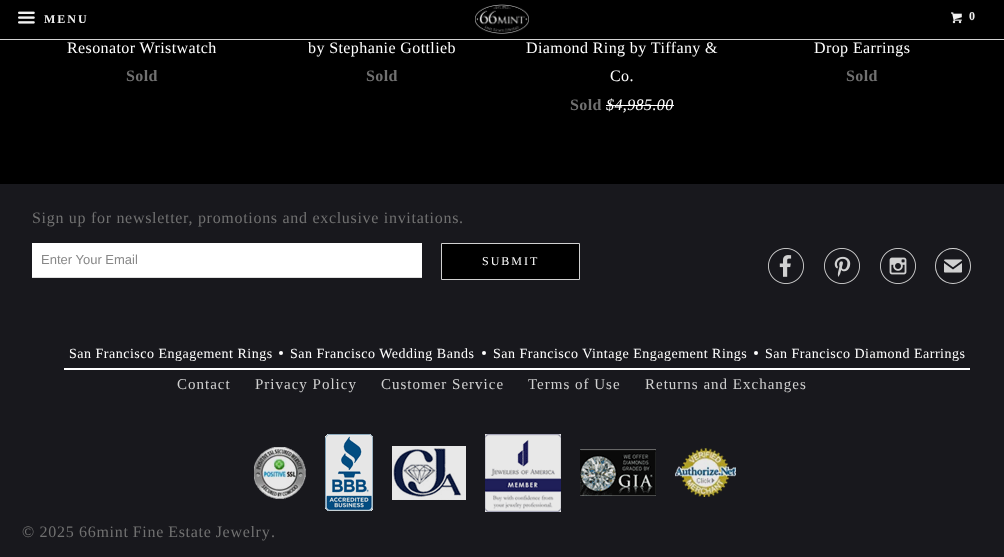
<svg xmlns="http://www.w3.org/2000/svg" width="1004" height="557">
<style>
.a{font:bold 12px Liberation Serif;letter-spacing:2px;fill:#f2f2f2}
.b{font:16px Liberation Serif;letter-spacing:0.4px;fill:#fff}
.c{font:bold 16px Liberation Serif;letter-spacing:0.4px;fill:#717171}
.d{font:italic 16px Liberation Serif;letter-spacing:0.4px;fill:#fff}
.e{font:16px Liberation Serif;letter-spacing:0.7px;fill:#717171}
.f{font:13px Liberation Sans;fill:#888}
.g{font:12px Liberation Serif;letter-spacing:2px;fill:#fff}
.h{font:36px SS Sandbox;letter-spacing:0.7px;fill:#d1d1d1}
.i{font:14px Liberation Serif;letter-spacing:0.5px;fill:#fff}
.j{font:15px Liberation Serif;letter-spacing:1px;fill:#d1d1d1}
</style>
<rect width="100%" height="100%" fill="#18181d"/>
<path fill="#000" d="M0 40h1004v144H0z"/>
<path fill="#000" d="M0 0h1004v39H0z"/>
<path fill="#d2d2d2" d="M0 39h1004v1H0z"/>
<image href="1.png" x="18" y="11" width="17" height="13"/>
<image href="2.png" x="475" y="4" width="54" height="30"/>
<image href="3.png" x="951" y="12" width="11" height="12"/>
<path fill="#fff" d="M606 105h68v1H606z"/>
<path fill="#fff" d="M32 243h390v34H32z"/>
<path fill="#dfdfdf" d="M32 277h390v1H32z"/>
<path fill="#000" stroke="#d1d1d1" d="M441.5 243.5h138v36H441.5z"/>
<image href="4.png" x="768" y="248" width="36" height="36"/>
<image href="5.png" x="824" y="248" width="36" height="36"/>
<image href="6.png" x="880" y="248" width="36" height="36"/>
<path fill="#fff" d="M64 368h906v2H64z"/>
<circle fill="#fff" cx="281" cy="353" r="2"/>
<circle fill="#fff" cx="484" cy="353" r="2"/>
<circle fill="#fff" cx="756" cy="353" r="2"/>
<image href="7.png" x="254" y="447" width="52" height="52"/>
<image href="8.png" x="325" y="434" width="48" height="77"/>
<image href="9.png" x="392" y="446" width="74" height="54"/>
<image href="10.png" x="485" y="434" width="76" height="78"/>
<image href="11.png" x="580" y="449" width="76" height="47"/>
<image href="12.png" x="675" y="448" width="61" height="49"/>
<text class="a" x="44" y="23">MENU</text>
<text class="a" x="969" y="20">0</text>
<text class="b" x="67" y="53">Resonator Wristwatch</text>
<text class="c" x="126" y="81">Sold</text>
<text class="b" x="308" y="53">by Stephanie Gottlieb</text>
<text class="c" x="366" y="81">Sold</text>
<text class="b" x="526" y="53">Diamond Ring by Tiffany &amp;</text>
<text class="b" x="610" y="81">Co.</text>
<text class="c" x="570" y="110">Sold</text>
<text class="d" x="606" y="110">$4,985.00</text>
<text class="b" x="814" y="53">Drop Earrings</text>
<text class="c" x="846" y="81">Sold</text>
<text class="e" x="32" y="223">Sign up for newsletter, promotions and exclusive invitations.</text>
<text class="f" x="41" y="264">Enter Your Email</text>
<text class="g" x="482" y="265">SUBMIT</text>
<text class="h" x="935" y="284">✉</text>
<text class="i" x="69" y="358">San Francisco Engagement Rings</text>
<text class="i" x="290" y="358">San Francisco Wedding Bands</text>
<text class="i" x="493" y="358">San Francisco Vintage Engagement Rings</text>
<text class="i" x="765" y="358">San Francisco Diamond Earrings</text>
<text class="j" x="177" y="389">Contact</text>
<text class="j" x="255" y="389">Privacy Policy</text>
<text class="j" x="381" y="389">Customer Service</text>
<text class="j" x="528" y="389">Terms of Use</text>
<text class="j" x="645" y="389">Returns and Exchanges</text>
<text class="e" x="22" y="537">© 2025</text>
<text class="e" x="79" y="537" word-spacing="-0.5">66mint Fine Estate Jewelry</text>
<text class="e" x="271" y="537">.</text>
</svg>
